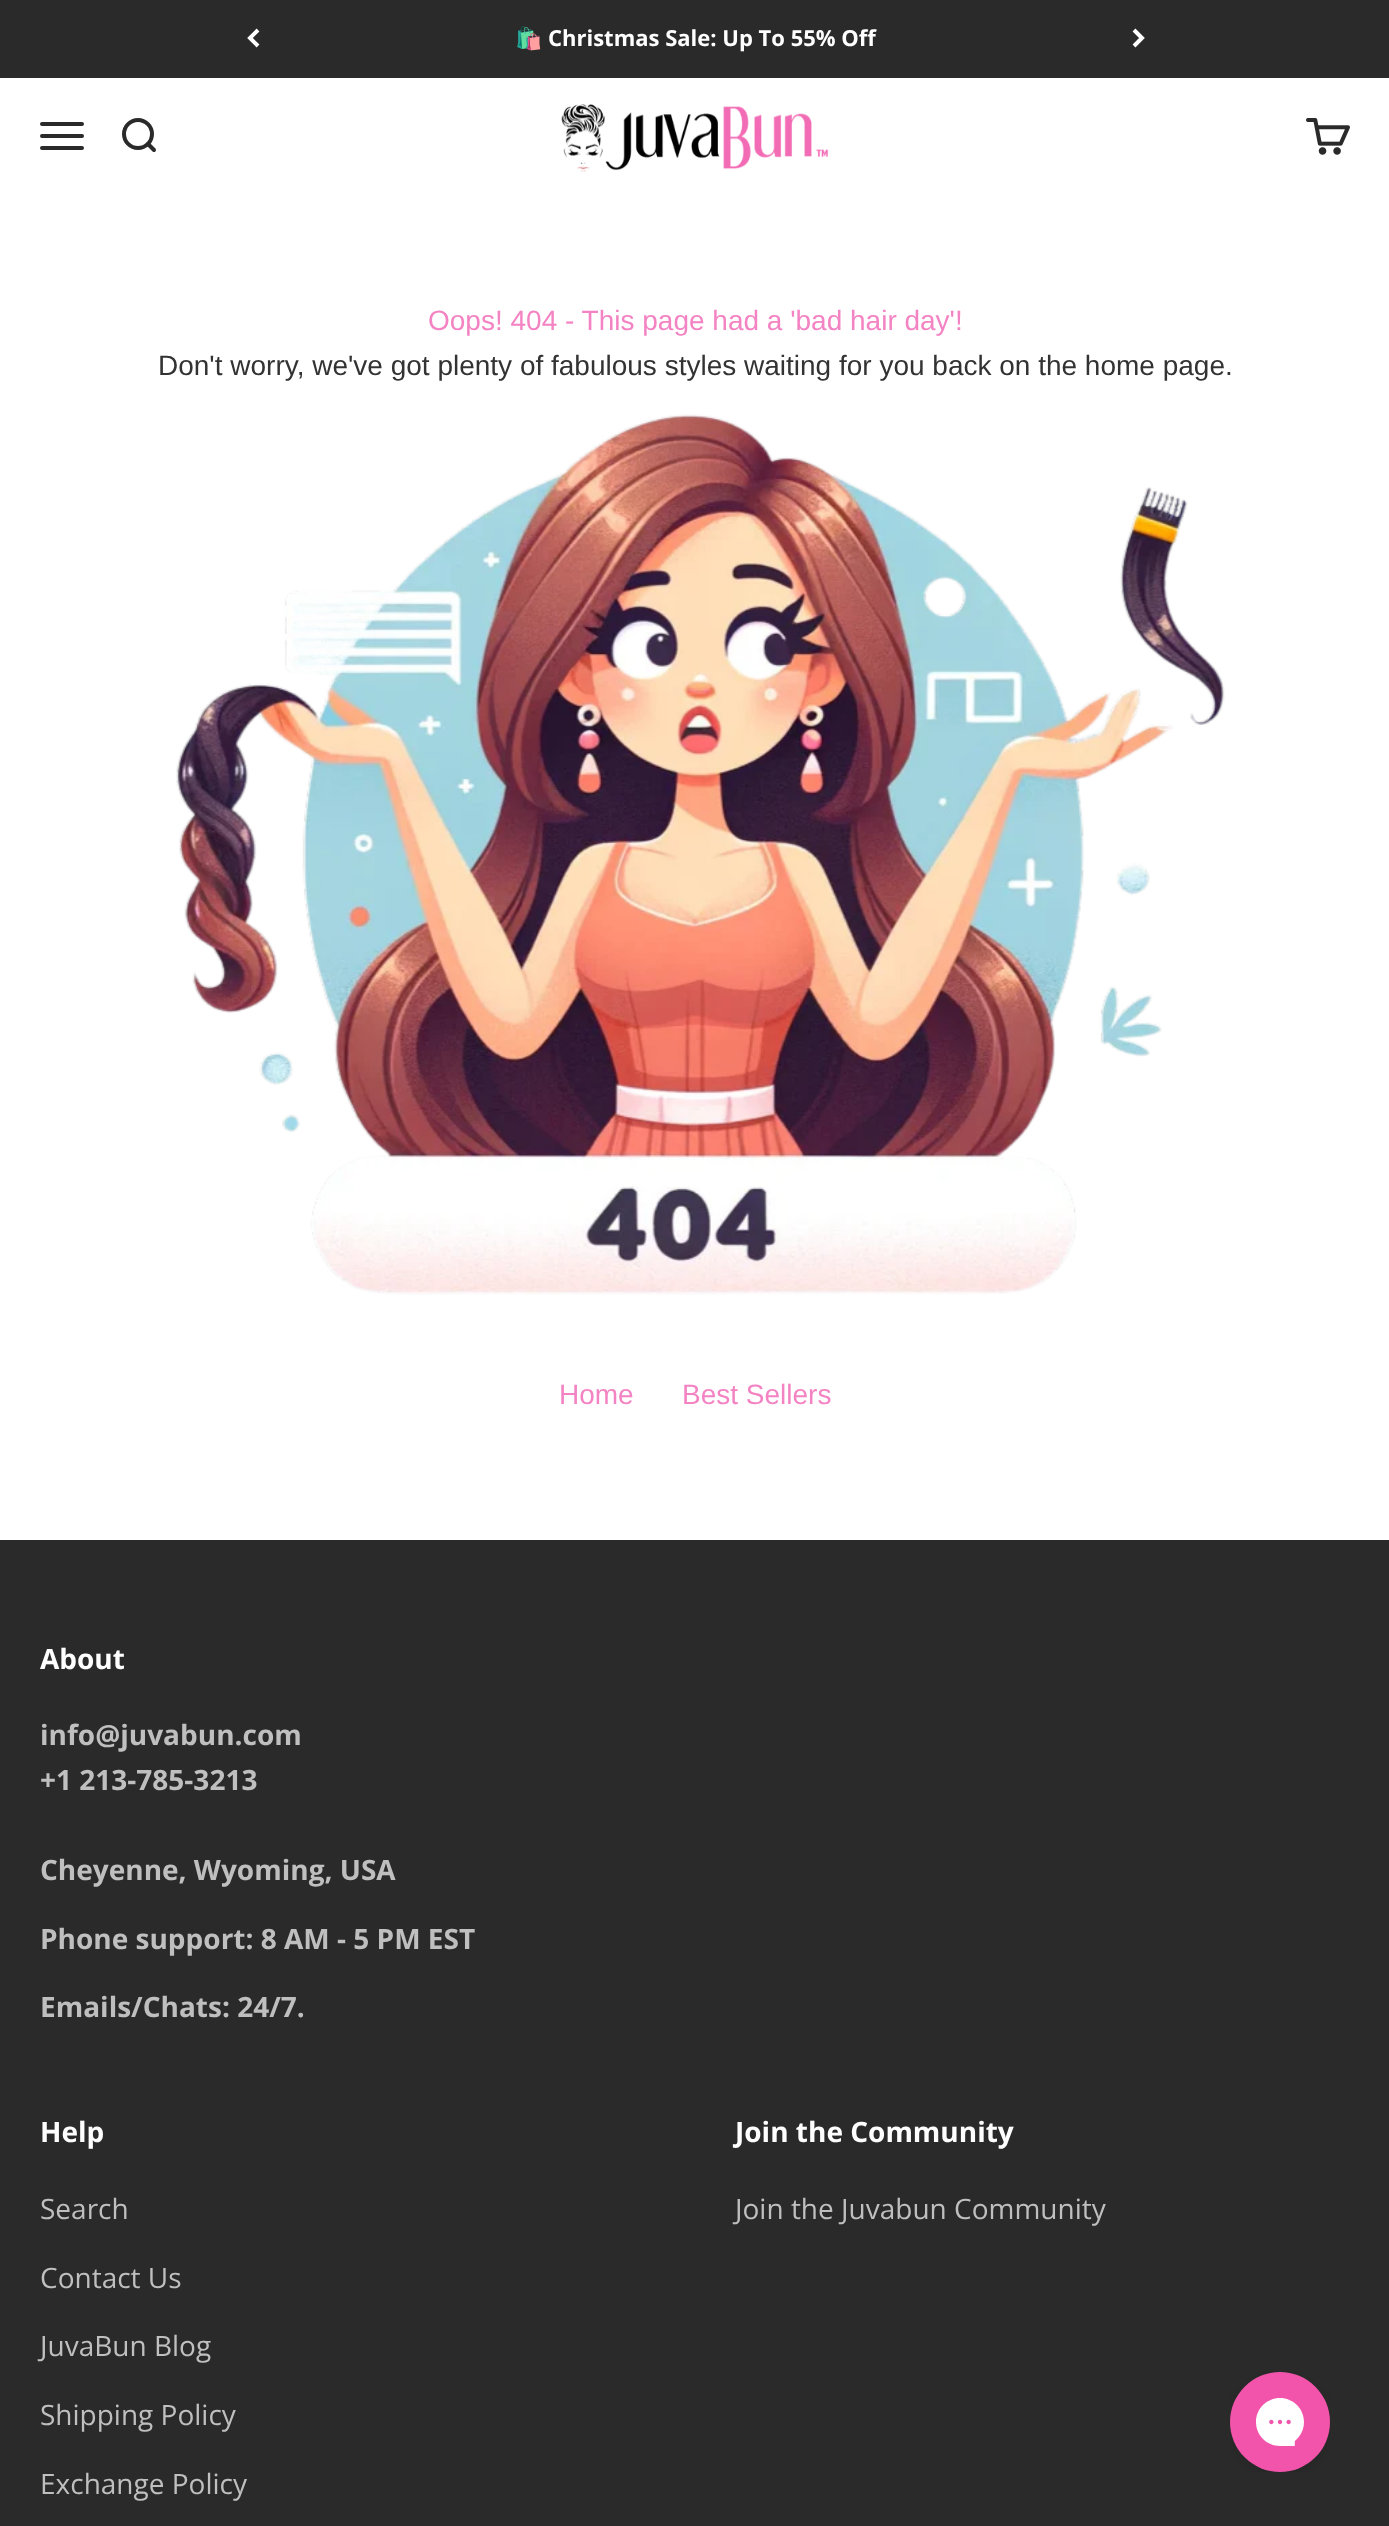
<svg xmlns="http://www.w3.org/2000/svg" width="1389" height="2526">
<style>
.a{font:bold 22px Noto Color Emoji;fill:#fff}
.b{font:bold 22px Open Sans;fill:#fff}
.c{font:28px Liberation Sans;fill:#f383c3}
.d{font:28px Liberation Sans;fill:#333}
.e{font:bold 28px Open Sans;fill:#fff}
.f{font:bold 28px Open Sans;fill:#bfbfbf}
.g{font:28px Open Sans;fill:#bfbfbf}
</style>
<rect width="100%" height="100%" fill="#fff"/>
<path fill="#2a2a2a" d="M0 0h1389v78H0z"/>
<path fill="none" stroke="#fff" stroke-width="4" d="M258 30l-8 8l8 8"/>
<path fill="none" stroke="#fff" stroke-width="4" d="M1134 46l8-8l-8-8"/>
<path fill="none" stroke="#2a2a2a" stroke-width="4" stroke-linecap="round" d="M42 124h40m-40 12h40m-40 12h40"/>
<circle fill="none" stroke="#2a2a2a" stroke-width="4" cx="138" cy="134" r="14"/>
<path fill="none" stroke="#2a2a2a" stroke-width="4" stroke-linecap="round" stroke-linejoin="round" d="M148 144l6 6"/>
<image href="1.png" x="561" y="104" width="268" height="68"/>
<image href="2.png" x="1306" y="118" width="44" height="37"/>
<image href="3.png" x="176" y="414" width="1049" height="881"/>
<path fill="#2a2a2a" d="M0 1540h1389v986H0z"/>
<image href="4.png" x="1230" y="2372" width="100" height="100"/>
<text class="a" x="515" y="46">🛍️</text>
<text class="b" x="548" y="46">Christmas Sale: Up To 55% Off</text>
<text class="c" x="428" y="330">Oops! 404 - This page had a 'bad hair day'!</text>
<text class="d" x="158" y="375">Don't worry, we've got plenty of fabulous styles waiting for you back on the home page.</text>
<text class="c" x="559" y="1404">Home</text>
<text class="c" x="682" y="1404">Best Sellers</text>
<text class="e" x="40" y="1669">About</text>
<text class="f" x="40" y="1745">info@juvabun.com</text>
<text class="f" x="40" y="1790">+1 213-785-3213</text>
<text class="f" x="40" y="1880">Cheyenne, Wyoming, USA</text>
<text class="f" x="40" y="1949">Phone support: 8 AM - 5 PM EST</text>
<text class="f" x="40" y="2017">Emails/Chats: 24/7.</text>
<text class="e" x="40" y="2142">Help</text>
<text class="g" x="40" y="2219">Search</text>
<text class="g" x="40" y="2288">Contact Us</text>
<text class="g" x="40" y="2356">JuvaBun Blog</text>
<text class="g" x="40" y="2425">Shipping Policy</text>
<text class="g" x="40" y="2494">Exchange Policy</text>
<text class="e" x="735" y="2142">Join the Community</text>
<text class="g" x="735" y="2219">Join the Juvabun Community</text>
</svg>
